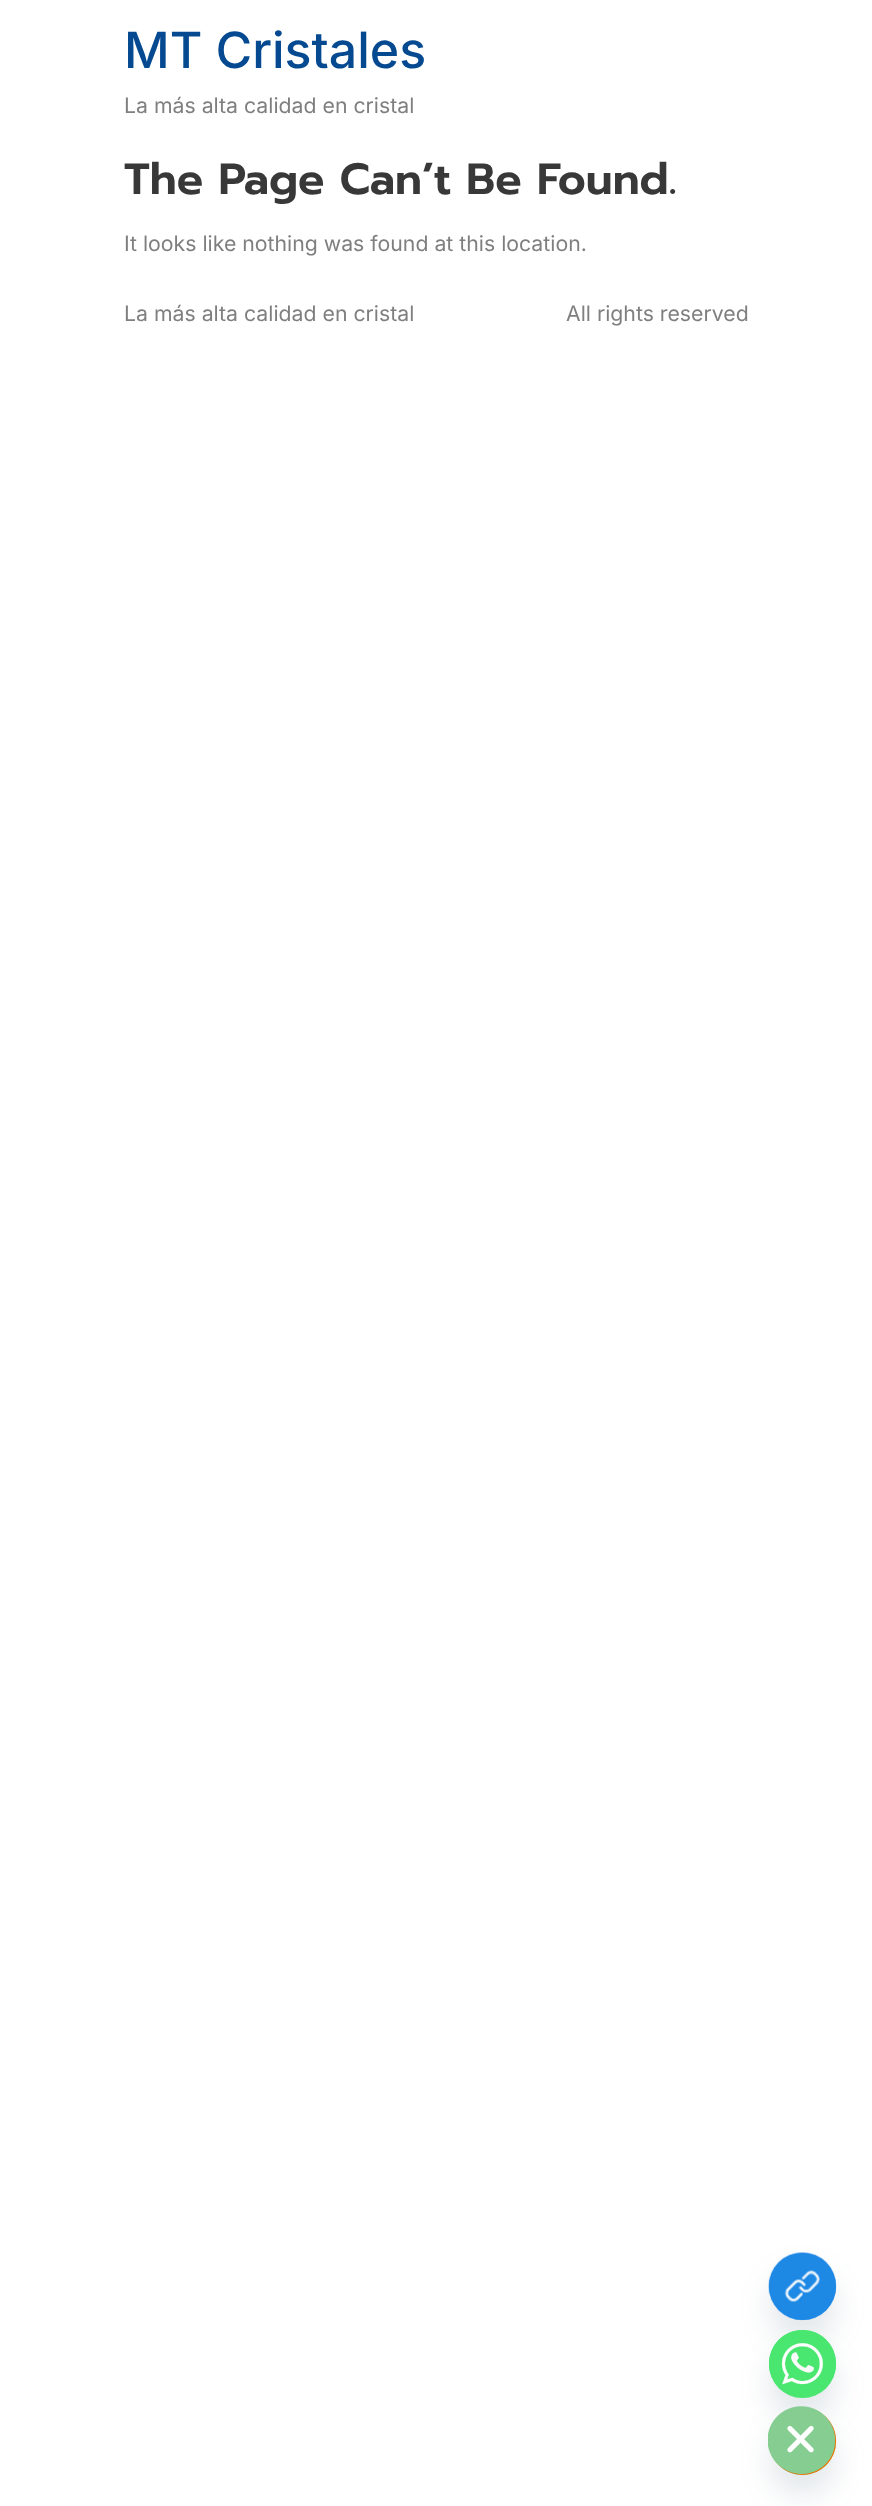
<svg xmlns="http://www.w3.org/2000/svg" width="872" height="2506">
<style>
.a{font:500 50px Inter;fill:#054a91}
.b{font:21.25px Inter;fill:#7f7f7f}
.c{font:600 43.75px Prompt;fill:#383838}
</style>
<rect width="100%" height="100%" fill="#fff"/>
<rect fill="#49687e29" filter="blur(15px)" x="769" y="2273" width="67" height="67" rx="33.5"/>
<circle fill="#1e88e5" cx="802.5" cy="2286.5" r="33.5"/>
<image href="1.png" x="768" y="2252" width="69" height="69"/>
<rect fill="#49687e29" filter="blur(15px)" x="769" y="2350" width="67" height="68" rx="33.5"/>
<rect fill="#49e670" x="769" y="2330" width="67" height="68" rx="33.5"/>
<image href="2.png" x="769" y="2330" width="67" height="55"/>
<rect fill="#49687e29" filter="blur(15px)" x="769" y="2428" width="67" height="67" rx="33.5"/>
<path fill="#86cd91" d="M802 2475c-18 0-33-15-33-34c0-18 15-33 33-33c19 0 34 15 34 33c0 19-15 34-34 34z"/>
<path fill="none" stroke="#f17300" stroke-width="1.2" d="M802.5 2474.5c-18.5 0-33-15-33-33.5c0-18 14.5-33 33-33c18.5 0 33 15 33 33c0 18.5-14.5 33.5-33 33.5z"/>
<image href="3.png" x="768" y="2406" width="67" height="68"/>
<text class="a" x="124" y="68">MT Cristales</text>
<text class="b" x="124" y="113">La más alta calidad en cristal</text>
<text class="c" x="124" y="194">The Page Can’t Be Found.</text>
<text class="b" x="124" y="251">It looks like nothing was found at this location.</text>
<text class="b" x="124" y="321">La más alta calidad en cristal</text>
<text class="b" x="566" y="321">All rights reserved</text>
</svg>
